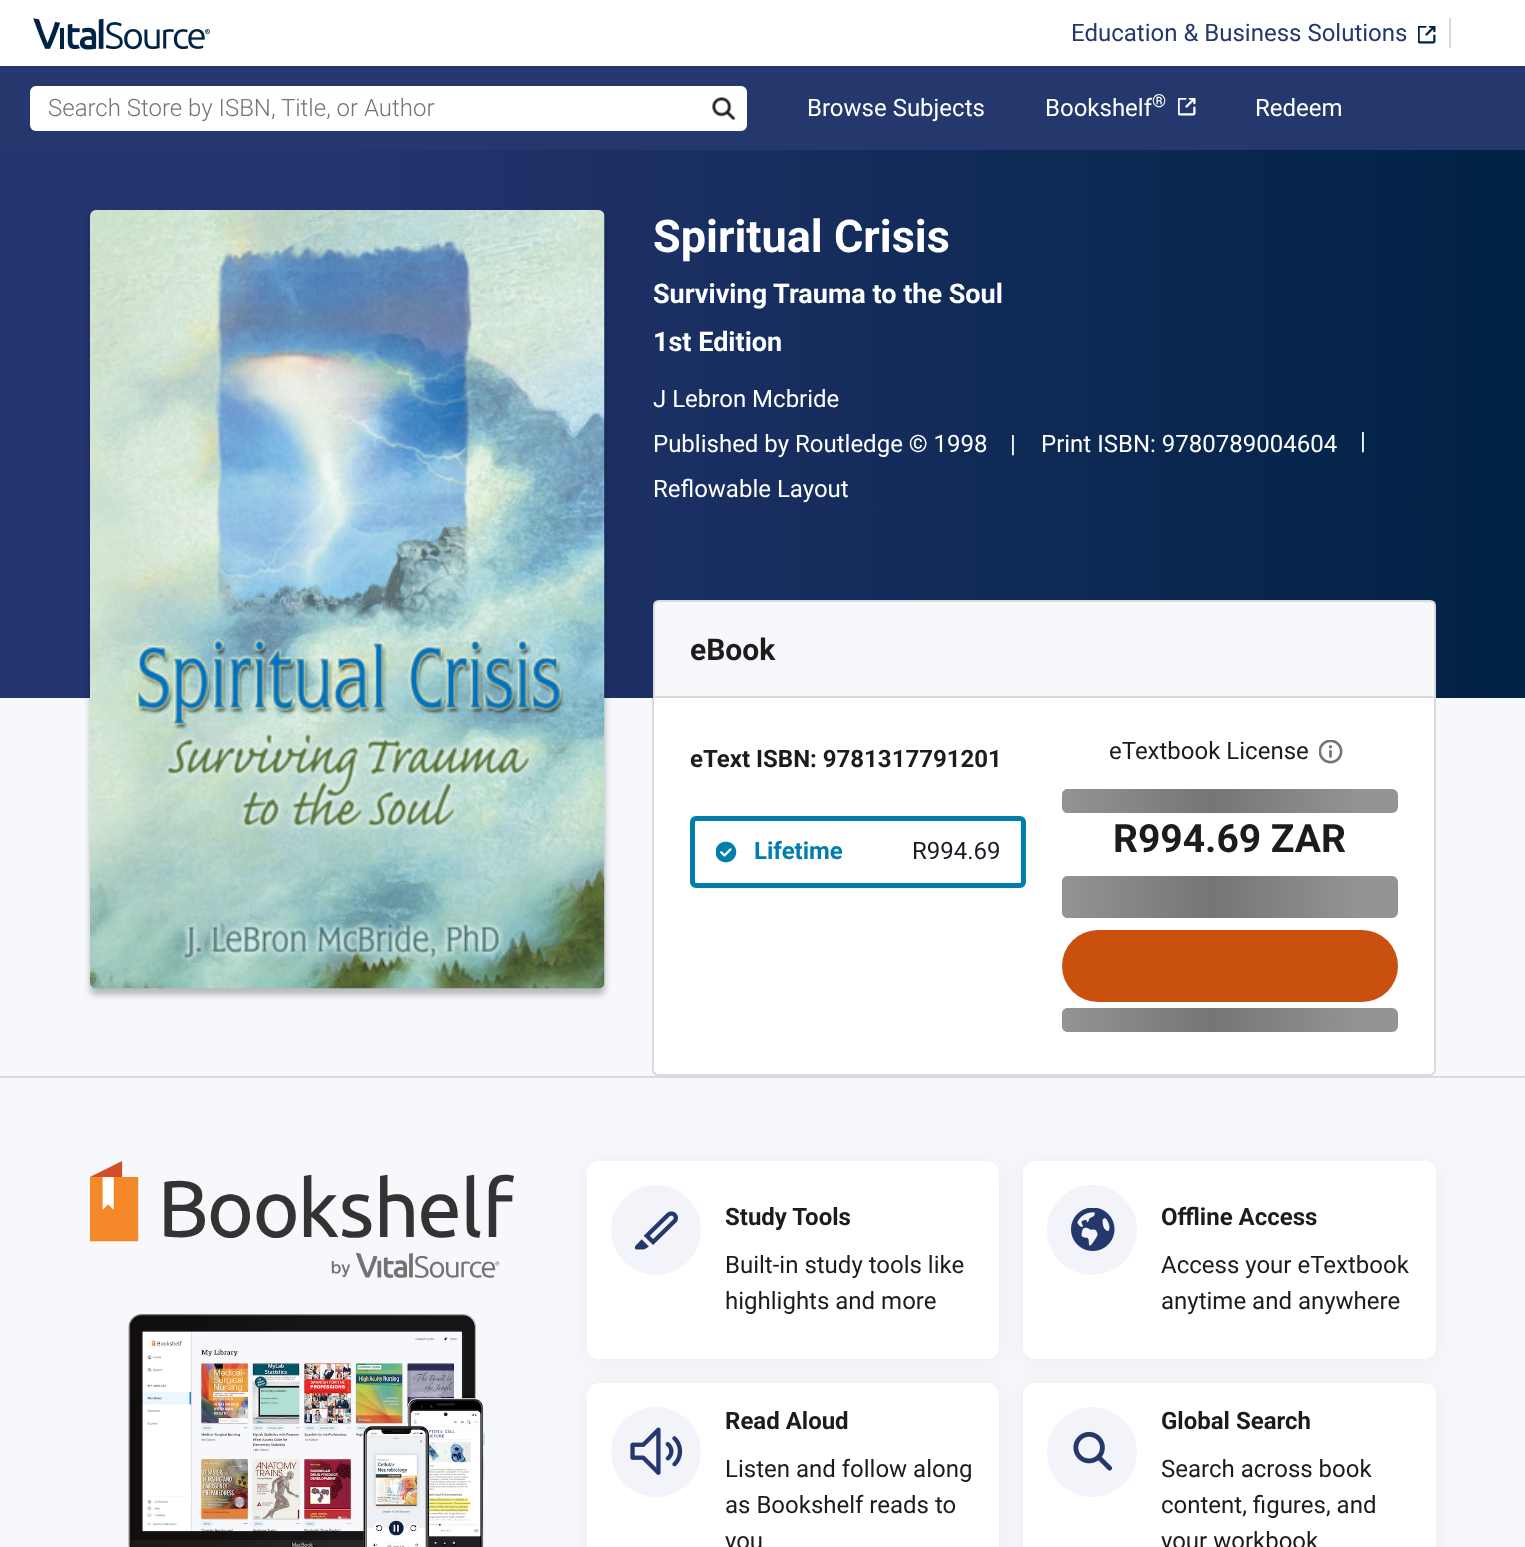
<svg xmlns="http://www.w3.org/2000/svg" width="1525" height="1547">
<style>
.a{font:24px Roboto;fill:#24386e}
.b{font:300 24px Roboto;fill:#757575}
.c{font:24px Roboto;fill:#fff}
.d{font:18px Roboto;fill:#fff}
.e{font:bold 45px Roboto;fill:#fff}
.f{font:bold 27px Roboto;fill:#fff}
.g{font:bold 30px Roboto;fill:#1c1c1c}
.h{font:bold 24px Roboto;fill:#1c1c1c}
.i{font:bold 24px Roboto;fill:#007fad}
.j{font:24px Roboto;fill:#1b1b26}
.k{font:24px Roboto;fill:#1c1c1c}
.l{font:bold 39px Roboto;fill:#1c1c1c}
</style>
<defs>
<linearGradient id="g1" gradientUnits="userSpaceOnUse" x1="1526" y1="424" x2="0" y2="424"><stop offset="0" stop-color="#024"/><stop offset="0.77" stop-color="#24346e"/></linearGradient>
<linearGradient id="g2" gradientUnits="userSpaceOnUse" x1="1062" y1="801" x2="1362" y2="801"><stop offset="0" stop-color="#949494"/><stop offset="0.5" stop-color="#757575"/><stop offset="1" stop-color="#949494"/></linearGradient>
<linearGradient id="g3" gradientUnits="userSpaceOnUse" x1="1062" y1="897" x2="1362" y2="897"><stop offset="0" stop-color="#949494"/><stop offset="0.5" stop-color="#757575"/><stop offset="1" stop-color="#949494"/></linearGradient>
<linearGradient id="g4" gradientUnits="userSpaceOnUse" x1="1062" y1="1020" x2="1362" y2="1020"><stop offset="0" stop-color="#949494"/><stop offset="0.5" stop-color="#757575"/><stop offset="1" stop-color="#949494"/></linearGradient>
</defs>
<rect width="100%" height="100%" fill="#fff"/>
<image href="1.png" x="33" y="18" width="177" height="32"/>
<image href="2.png" x="1418" y="26" width="18" height="18"/>
<path fill="#d3d7e2" d="M1449 18h2v30H1449z"/>
<path fill="#24386e" d="M0 66h1525v84H0z"/>
<rect fill="#fff" x="30" y="86" width="717" height="45" rx="6"/>
<image href="3.png" x="712" y="97" width="24" height="24"/>
<image href="4.png" x="1178" y="98" width="18" height="18"/>
<path fill="#f6f8fc" d="M0 698h1525v378H0z"/>
<path fill="url(#g1)" d="M0 150h1525v548H0z"/>
<rect fill="#00000040" filter="blur(3px)" x="90" y="216" width="515" height="779" rx="6"/>
<image href="5.png" x="90" y="210" width="515" height="779"/>
<path fill="#f6f8fc" stroke="#dadada" stroke-width="2" d="M659 601h771c3 0 5 2 5 5v91h-781v-91c0-3 2-5 5-5z"/>
<path fill="#fff" d="M653 698h783v372c0 3.5-2.5 6-6 6h-771c-3.5 0-6-2.5-6-6z"/>
<path fill="#dadada" fill-rule="evenodd" d="M652 698h784v372c0 3-3 6-6 6h-772c-3 0-6-3-6-6zm2 0h780v372c0 2-2 4-4 4h-772c-2 0-4-2-4-4z"/>
<rect fill="none" stroke="#007fad" stroke-width="5" x="692.5" y="818.5" width="331" height="67" rx="3.5"/>
<image href="6.png" x="716" y="841" width="21" height="22"/>
<image href="7.png" x="1319" y="740" width="24" height="24"/>
<rect fill="#949494" x="1062" y="789" width="336" height="24" rx="6"/>
<path fill="url(#g2)" d="M1068 789h294v24h-294c-3.5 0-6-2.5-6-6v-12c0-3.5 2.5-6 6-6z"/>
<rect fill="#949494" x="1062" y="876" width="336" height="42" rx="6"/>
<path fill="url(#g3)" d="M1068 876h294v42h-294c-3.5 0-6-2.5-6-6v-30c0-3.5 2.5-6 6-6z"/>
<rect fill="#ca500f" x="1062" y="930" width="336" height="72" rx="36"/>
<rect fill="#949494" x="1062" y="1008" width="336" height="24" rx="6"/>
<path fill="url(#g4)" d="M1068 1008h294v24h-294c-3.5 0-6-2.5-6-6v-12c0-3.5 2.5-6 6-6z"/>
<path fill="#f6f8fc" d="M0 1078h1525v469H0z"/>
<path fill="#dadada" d="M0 1076h1525v2H0z"/>
<image href="8.png" x="90" y="1161" width="424" height="117"/>
<image href="9.png" x="128" y="1314" width="357" height="233"/>
<rect fill="#0000000d" filter="blur(12px)" x="587" y="1163" width="412" height="198" rx="12"/>
<rect fill="#fff" x="587" y="1161" width="412" height="198" rx="12"/>
<circle fill="#f2f4f9" cx="656" cy="1230" r="45"/>
<image href="10.png" x="635" y="1211" width="43" height="39"/>
<rect fill="#0000000d" filter="blur(12px)" x="587" y="1385" width="412" height="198" rx="12"/>
<rect fill="#fff" x="587" y="1383" width="412" height="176" rx="12"/>
<rect fill="#0000000d" filter="blur(12px)" x="1023" y="1163" width="413" height="198" rx="12"/>
<rect fill="#fff" x="1023" y="1161" width="413" height="198" rx="12"/>
<circle fill="#f2f4f9" cx="1092" cy="1230" r="45"/>
<image href="11.png" x="1071" y="1208" width="44" height="43"/>
<circle fill="#f2f4f9" cx="656" cy="1452" r="45"/>
<image href="12.png" x="630" y="1427" width="53" height="48"/>
<rect fill="#0000000d" filter="blur(12px)" x="1023" y="1385" width="413" height="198" rx="12"/>
<rect fill="#fff" x="1023" y="1383" width="413" height="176" rx="12"/>
<circle fill="#f2f4f9" cx="1092" cy="1452" r="45"/>
<image href="13.png" x="1073" y="1431" width="40" height="40"/>
<text class="a" x="1071" y="41">Education &amp; Business Solutions</text>
<text class="b" x="48" y="116">Search Store by ISBN, Title, or Author</text>
<text class="c" x="807" y="116">Browse Subjects</text>
<text class="c" x="1045" y="116">Bookshelf</text>
<text class="d" x="1152" y="107">®</text>
<text class="c" x="1255" y="116">Redeem</text>
<text class="e" x="653" y="252">Spiritual Crisis</text>
<text class="f" x="653" y="303">Surviving Trauma to the Soul</text>
<text class="f" x="653" y="351">1st Edition</text>
<text class="c" x="653" y="407">J Lebron Mcbride</text>
<text class="c" x="653" y="452">Published by Routledge © 1998</text>
<text class="c" x="1010" y="452">|</text>
<text class="c" x="1041" y="452">Print ISBN: 9780789004604</text>
<text class="c" x="1360" y="449">|</text>
<text class="c" x="653" y="497">Reflowable Layout</text>
<text class="g" x="690" y="660">eBook</text>
<text class="h" x="690" y="767">eText ISBN: 9781317791201</text>
<text class="i" x="754" y="859">Lifetime</text>
<text class="j" x="912" y="859">R994.69</text>
<text class="k" x="1109" y="759">eTextbook License</text>
<text class="l" x="1113" y="852">R994.69 ZAR</text>
<text class="h" x="725" y="1225">Study Tools</text>
<text class="k" x="725" y="1273">Built-in study tools like</text>
<text class="k" x="725" y="1309">highlights and more</text>
<text class="h" x="1161" y="1225">Offline Access</text>
<text class="k" x="1161" y="1273">Access your eTextbook</text>
<text class="k" x="1161" y="1309">anytime and anywhere</text>
<text class="h" x="725" y="1429">Read Aloud</text>
<text class="k" x="725" y="1477">Listen and follow along</text>
<text class="k" x="725" y="1513">as Bookshelf reads to</text>
<text class="k" x="725" y="1549">you</text>
<text class="h" x="1161" y="1429">Global Search</text>
<text class="k" x="1161" y="1477">Search across book</text>
<text class="k" x="1161" y="1513">content, figures, and</text>
<text class="k" x="1161" y="1549">your workbook</text>
</svg>
